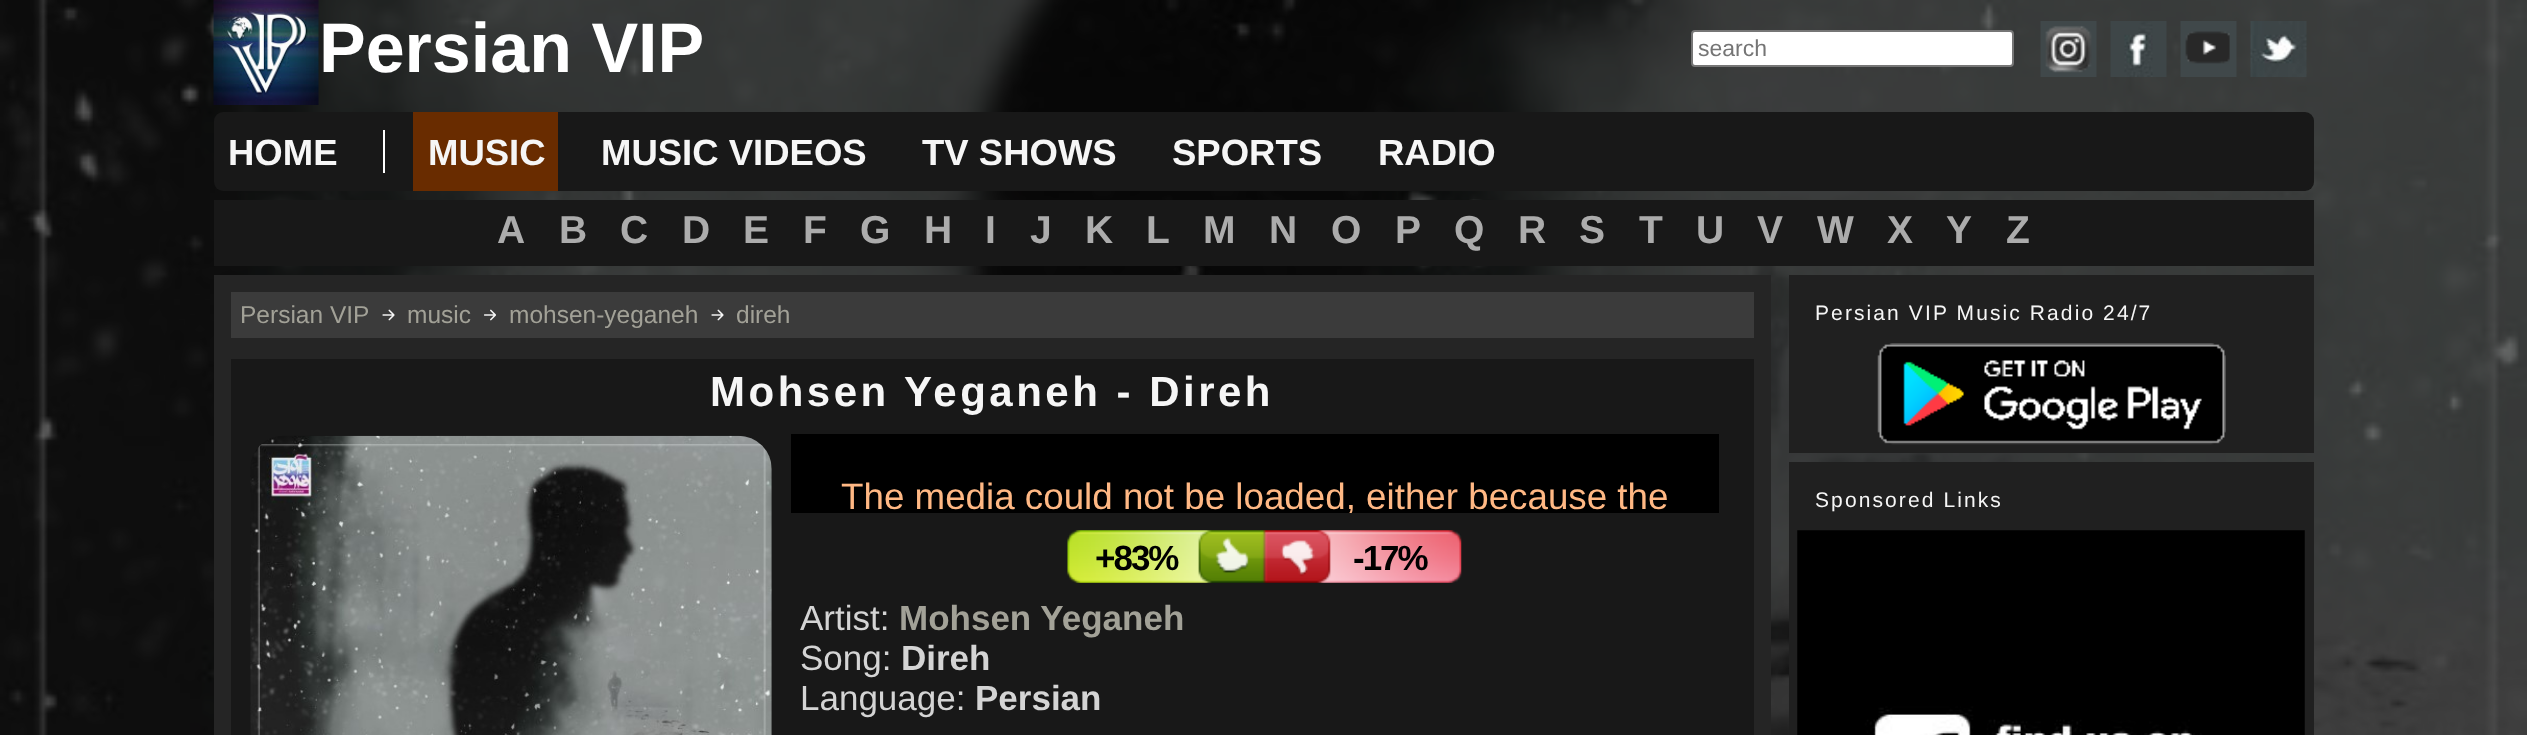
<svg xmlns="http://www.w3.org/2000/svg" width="2527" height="735">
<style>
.a{font:bold 70px Liberation Sans;fill:#fff}
.b{font:23px Liberation Sans;fill:#757575}
.c{font:bold 36.5px Liberation Sans;fill:#f6f6f6}
.d{font:bold 39px Liberation Sans;fill:#acacac}
.e{font:24.5px Liberation Sans;fill:#a2a197}
.f{font:bold 42px Liberation Sans;letter-spacing:3.5px;fill:#f6f6f6}
.g{font:36.75px Liberation Sans;fill:#ffb884}
.h{font:bold 35px Liberation Sans;letter-spacing:-2px;fill:#000}
.i{font:35px Liberation Sans;fill:#d4d4d4}
.j{font:bold 35px Liberation Sans;fill:#a2a197}
.k{font:bold 35px Liberation Sans;fill:#d4d4d4}
.l{font:21px Liberation Sans;letter-spacing:2.1px;fill:#f6f6f6}
</style>
<defs>
<clipPath id="clip1"><path d="M791 434h928v79H791z"/></clipPath>
</defs>
<rect width="100%" height="100%" fill="#fff"/>
<image href="1.png" x="0" y="0" width="2527" height="735"/>
<image href="2.png" x="213" y="0" width="106" height="105"/>
<rect fill="#fff" stroke="#767676" stroke-width="2" x="1692" y="31" width="321" height="35" rx="3"/>
<image href="3.png" x="2040" y="21" width="57" height="56"/>
<image href="4.png" x="2110" y="21" width="57" height="56"/>
<image href="5.png" x="2180" y="21" width="57" height="56"/>
<image href="6.png" x="2250" y="21" width="57" height="56"/>
<rect fill="#181818" x="214" y="112" width="2100" height="79" rx="9"/>
<path fill="#fff" d="M383 130h2v43H383z"/>
<path fill="#692c00" d="M413 112h145v79H413z"/>
<path fill="#181818" d="M214 200h2100v66H214z"/>
<path fill="#252525" d="M214 275h1557v460H214z"/>
<path fill="#3b3b3b" d="M231 292h1523v46H231z"/>
<image href="7.png" x="382" y="309" width="13" height="12"/>
<image href="8.png" x="484" y="309" width="12" height="12"/>
<image href="7.png" x="711" y="309" width="13" height="12"/>
<path fill="#181818" d="M231 359h1523v376H231z"/>
<image href="9.png" x="250" y="435" width="522" height="300"/>
<path fill="#000" d="M791 434h928v79H791z"/>
<image href="10.png" x="1067" y="530" width="395" height="53"/>
<path fill="#202020" d="M1789 275h525v178H1789z"/>
<image href="11.png" x="1877" y="343" width="349" height="102"/>
<path fill="#202020" d="M1789 462h525v273H1789z"/>
<image href="12.png" x="1797" y="530" width="508" height="205"/>
<text class="a" x="319" y="72">Persian VIP</text>
<text class="b" x="1698" y="56">search</text>
<text class="c" x="228" y="165">HOME</text>
<text class="c" x="428" y="165">MUSIC</text>
<text class="c" x="601" y="165">MUSIC VIDEOS</text>
<text class="c" x="922" y="165">TV SHOWS</text>
<text class="c" x="1172" y="165">SPORTS</text>
<text class="c" x="1378" y="165">RADIO</text>
<text class="d" x="497" y="243">A</text>
<text class="d" x="559" y="243">B</text>
<text class="d" x="620" y="243">C</text>
<text class="d" x="682" y="243">D</text>
<text class="d" x="743" y="243">E</text>
<text class="d" x="803" y="243">F</text>
<text class="d" x="860" y="243">G</text>
<text class="d" x="924" y="243">H</text>
<text class="d" x="985" y="243">I</text>
<text class="d" x="1030" y="243">J</text>
<text class="d" x="1085" y="243">K</text>
<text class="d" x="1146" y="243">L</text>
<text class="d" x="1203" y="243">M</text>
<text class="d" x="1269" y="243">N</text>
<text class="d" x="1331" y="243">O</text>
<text class="d" x="1395" y="243">P</text>
<text class="d" x="1454" y="243">Q</text>
<text class="d" x="1518" y="243">R</text>
<text class="d" x="1579" y="243">S</text>
<text class="d" x="1639" y="243">T</text>
<text class="d" x="1696" y="243">U</text>
<text class="d" x="1757" y="243">V</text>
<text class="d" x="1817" y="243">W</text>
<text class="d" x="1887" y="243">X</text>
<text class="d" x="1946" y="243">Y</text>
<text class="d" x="2006" y="243">Z</text>
<text class="e" x="240" y="323">Persian VIP</text>
<text class="e" x="407" y="323">music</text>
<text class="e" x="509" y="323">mohsen-yeganeh</text>
<text class="e" x="736" y="323">direh</text>
<text class="f" x="710" y="406">Mohsen Yeganeh - Direh</text>
<g clip-path="url(#clip1)">
<text class="g" x="841" y="509">The media could not be loaded, either because the</text>
</g>
<text class="h" x="1095" y="570">+83%</text>
<text class="h" x="1353" y="570">-17%</text>
<text class="i" x="800" y="630">Artist:</text>
<text class="j" x="899" y="630">Mohsen Yeganeh</text>
<text class="i" x="800" y="670">Song:</text>
<text class="k" x="901" y="670">Direh</text>
<text class="i" x="800" y="710">Language:</text>
<text class="k" x="975" y="710">Persian</text>
<text class="l" x="1815" y="320">Persian VIP Music Radio 24/7</text>
<text class="l" x="1815" y="507">Sponsored Links</text>
</svg>
